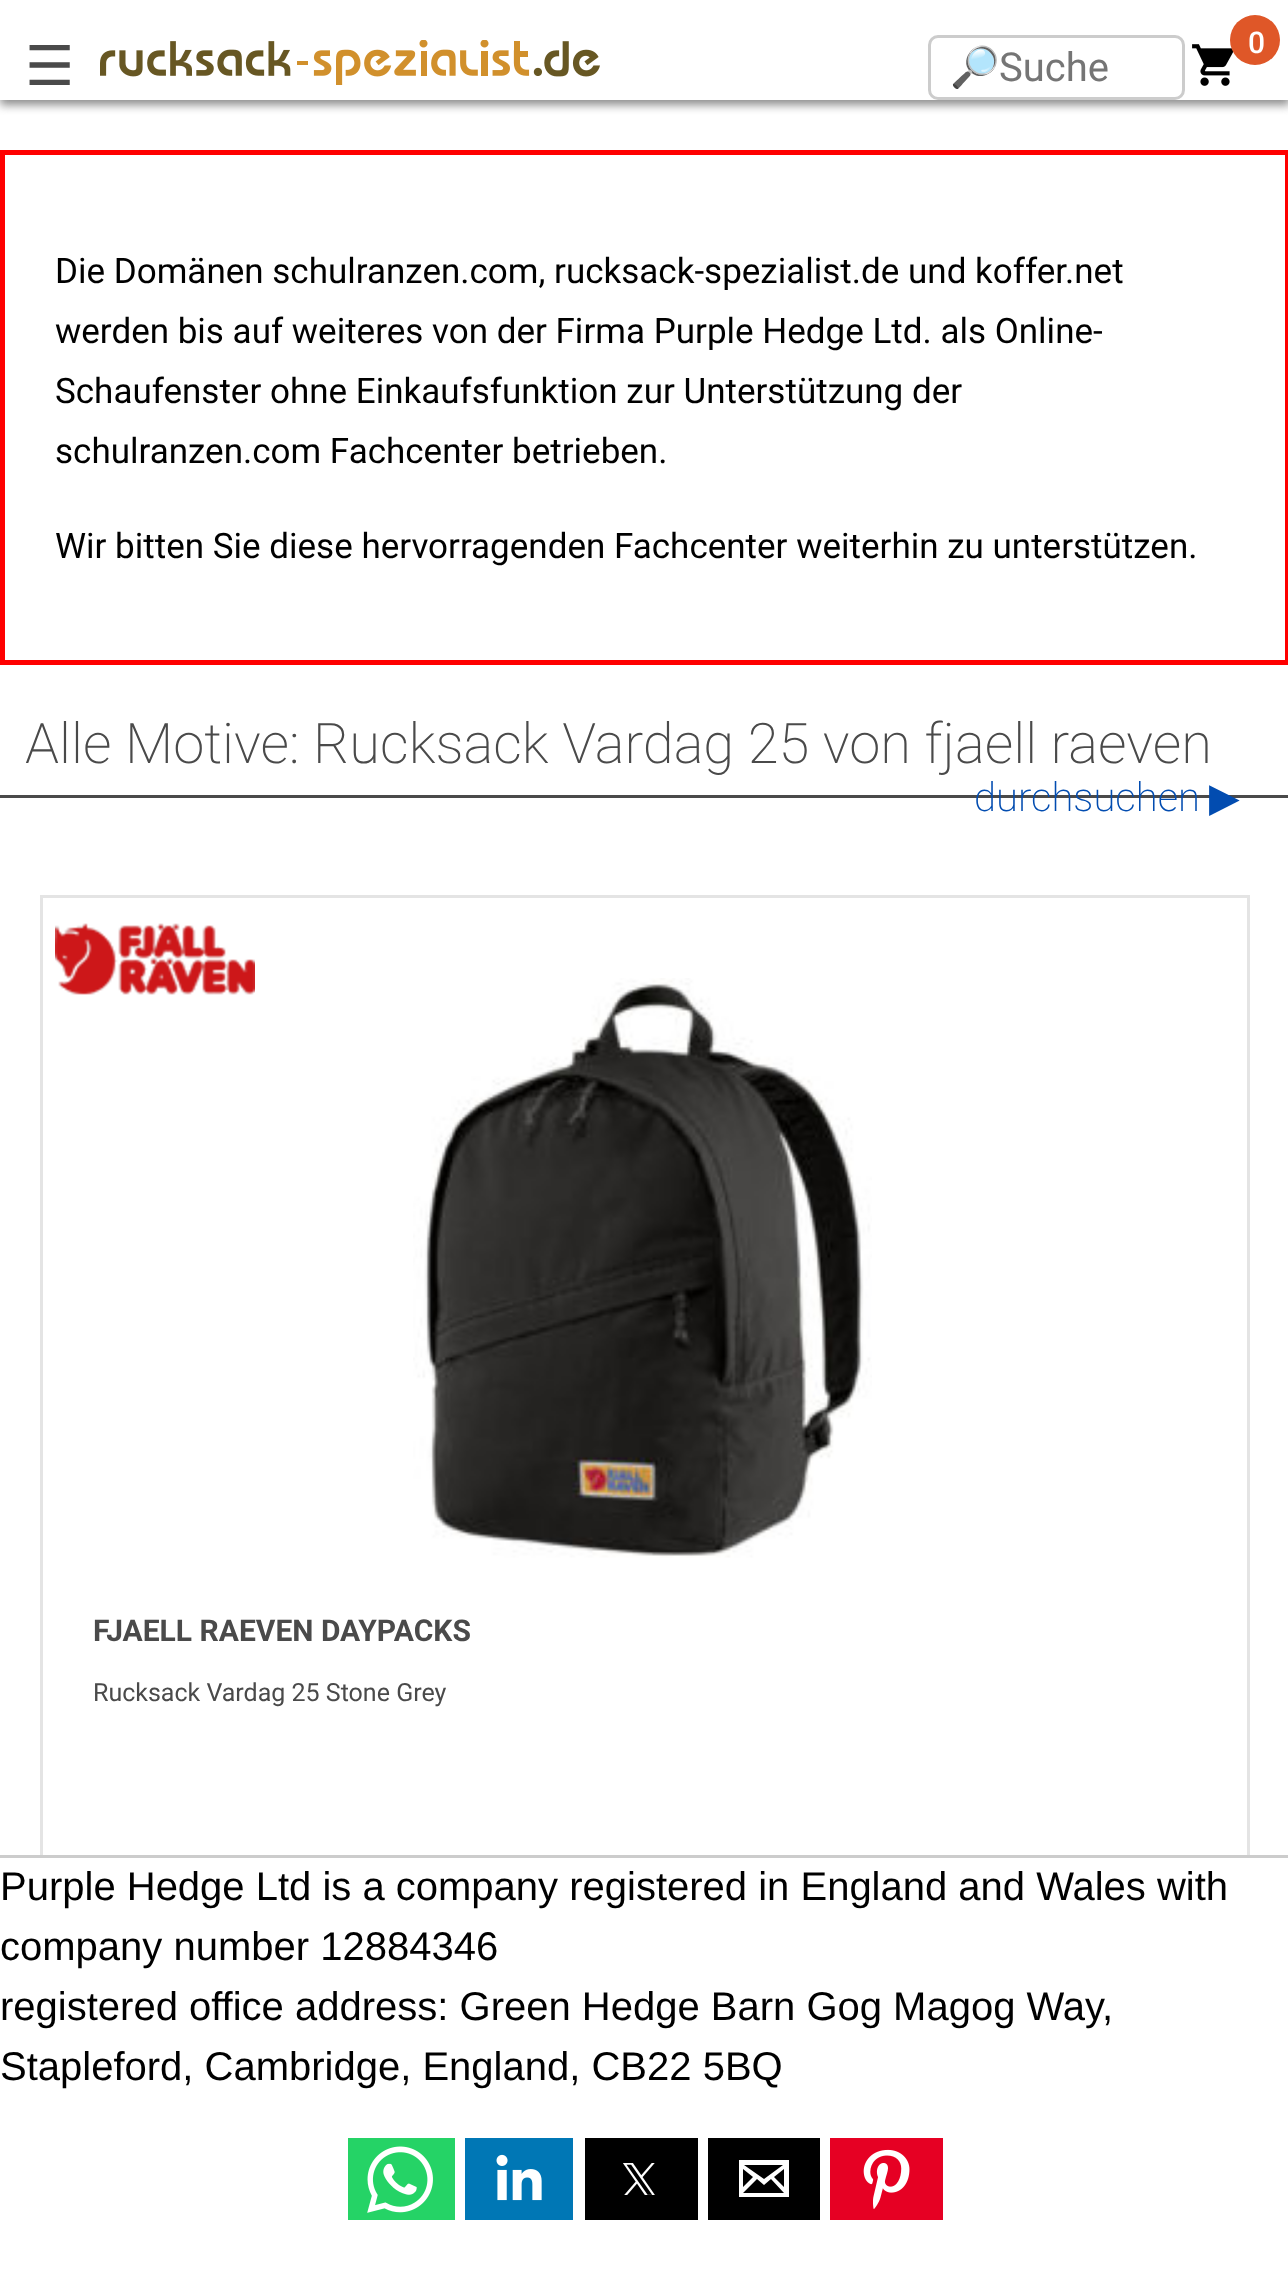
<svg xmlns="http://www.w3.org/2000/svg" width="1288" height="2277">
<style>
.a{font:55px DejaVu Sans;fill:#4a4a4a}
.b{font:40px Noto Color Emoji;fill:#757575}
.c{font:40px Roboto;fill:#757575}
.d{font:500 30px Roboto;fill:#fff}
.e{font:35px Roboto;fill:#000}
.f{font:200 56px Roboto;fill:#4a4a4a}
.g{font:200 40px Roboto;fill:#024cb0}
.h{font:40px DejaVu Sans;fill:#024cb0}
.i{font:bold 30px Roboto;fill:#4a4a4a}
.j{font:25px Roboto;fill:#4a4a4a}
.k{font:40px Liberation Sans;fill:#000}
</style>
<defs>
<clipPath id="clip1"><path d="M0 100h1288v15H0z"/></clipPath>
<clipPath id="clip2"><path d="M950 45h213v48H950z"/></clipPath>
</defs>
<rect width="100%" height="100%" fill="#fff"/>
<g clip-path="url(#clip1)">
<path fill="#8c8c8c" filter="blur(5px)" d="M0 5h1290v100H0z"/>
</g>
<image href="1.png" x="100" y="40" width="500" height="45"/>
<rect fill="none" stroke="#ccc" stroke-width="3" x="929.5" y="36.5" width="254" height="62" rx="8.5"/>
<image href="2.png" x="1192" y="44" width="42" height="42"/>
<circle fill="#df5728" cx="1255" cy="40" r="25"/>
<path fill="none" stroke="#f00" stroke-width="5" d="M2.5 152.5h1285v510H2.5z"/>
<path fill="#4a4a4a" d="M0 795h1288v3H0z"/>
<path fill="none" stroke="#e4e4e4" stroke-width="3" d="M41.5 896.5h1207v1002H41.5z"/>
<image href="3.png" x="55" y="923" width="200" height="72"/>
<image href="4.png" x="413" y="978" width="459" height="580"/>
<path fill="#fff" d="M40 1858h1210v42H40z"/>
<path fill="#ccc" d="M0 1855h1288v3H0z"/>
<path fill="#25d366" d="M348 2138h107v82H348z"/>
<image href="5.png" x="367" y="2146" width="66" height="67"/>
<path fill="#0077b5" d="M465 2138h108v82H465z"/>
<image href="6.png" x="496" y="2154" width="46" height="47"/>
<path fill="#000" d="M585 2138h113v82H585z"/>
<image href="7.png" x="623" y="2163" width="32" height="32"/>
<path fill="#000" d="M708 2138h112v82H708z"/>
<path fill="#fff" d="M739 2160v37h50v-37zm44 5l-19 14l-20-14zm-40 4l10 8l-10 10zm0 24l14-14l7 6l7-6l13 14zm41-6l-10-10l10-8z"/>
<path fill="#e60023" d="M830 2138h113v82H830z"/>
<image href="8.png" x="863" y="2149" width="47" height="60"/>
<text class="a" x="25" y="85">☰</text>
<g clip-path="url(#clip2)">
<text class="b" x="950" y="81">🔎</text>
</g>
<text class="c" x="999" y="81">Suche</text>
<text class="d" x="1248" y="53">0</text>
<text class="e" x="55" y="283">Die Domänen schulranzen.com, rucksack-spezialist.de und koffer.net</text>
<text class="e" x="55" y="343">werden bis auf weiteres von der Firma Purple Hedge Ltd. als Online-</text>
<text class="e" x="55" y="403">Schaufenster ohne Einkaufsfunktion zur Unterstützung der</text>
<text class="e" x="55" y="463">schulranzen.com Fachcenter betrieben.</text>
<text class="e" x="55" y="558">Wir bitten Sie diese hervorragenden Fachcenter weiterhin zu unterstützen.</text>
<text class="f" x="25" y="763">Alle Motive: Rucksack Vardag 25 von fjaell raeven</text>
<text class="g" x="974" y="811">durchsuchen</text>
<text class="h" x="1209" y="811">▶</text>
<text class="i" x="93" y="1641">FJAELL RAEVEN DAYPACKS</text>
<text class="j" x="93" y="1701">Rucksack Vardag 25 Stone Grey</text>
<text class="k" x="0" y="1900">Purple Hedge Ltd is a company registered in England and Wales with</text>
<text class="k" x="0" y="1960">company number 12884346</text>
<text class="k" x="0" y="2020">registered office address: Green Hedge Barn Gog Magog Way,</text>
<text class="k" x="0" y="2080">Stapleford, Cambridge, England, CB22 5BQ</text>
</svg>
